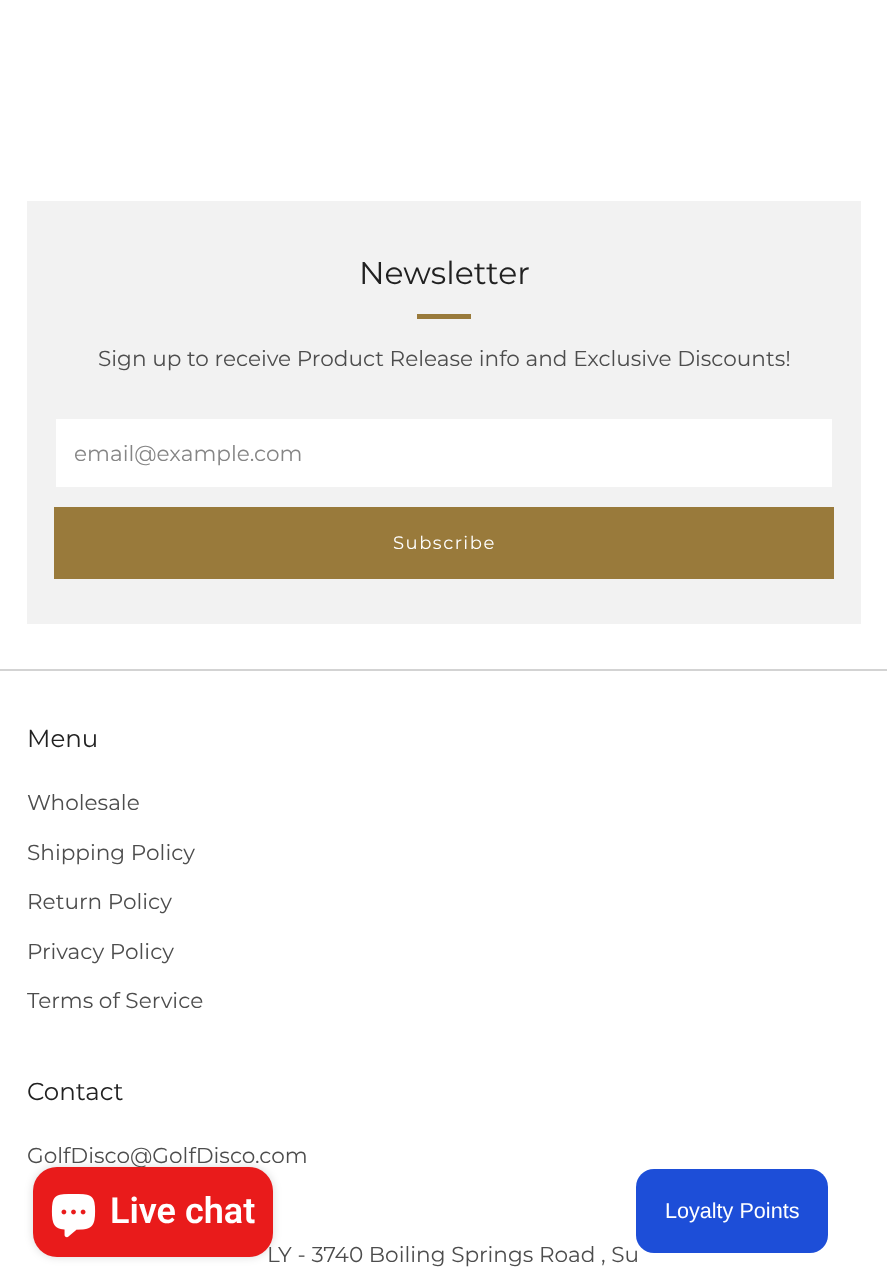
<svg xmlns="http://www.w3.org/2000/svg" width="887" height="1288">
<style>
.a{font:31.5px Montserrat;fill:#212121}
.b{font:21.6px Montserrat;fill:#4d4d4d}
.c{font:21.6px Montserrat;fill:#858585}
.d{font:18px Montserrat;letter-spacing:1.5px;fill:#fff}
.e{font:24.5px Montserrat;fill:#212121}
.f{font:600 36px Roboto;fill:#fff}
.g{font:21.6px Liberation Sans;fill:#fff}
</style>
<rect width="100%" height="100%" fill="#fff"/>
<path fill="#f2f2f2" d="M27 201h834v423H27z"/>
<path fill="#997a3b" d="M417 314h54v5H417z"/>
<path fill="#fff" d="M56 419h776v68H56z"/>
<path fill="#997a3b" d="M54 507h780v72H54z"/>
<path fill="#d3d3d3" d="M0 669h887v2H0z"/>
<rect fill="#00000026" filter="blur(4px)" x="33" y="1167" width="240" height="90" rx="24"/>
<text class="a" x="359" y="284">Newsletter</text>
<text class="b" x="98" y="366">Sign up to receive Product Release info and Exclusive Discounts!</text>
<text class="c" x="74" y="461">email@example.com</text>
<text class="d" x="393" y="549">Subscribe</text>
<text class="e" x="27" y="747">Menu</text>
<text class="b" x="27" y="810">Wholesale</text>
<text class="b" x="27" y="860">Shipping Policy</text>
<text class="b" x="27" y="909">Return Policy</text>
<text class="b" x="27" y="959">Privacy Policy</text>
<text class="b" x="27" y="1008">Terms of Service</text>
<text class="e" x="27" y="1100">Contact</text>
<text class="b" x="27" y="1163">GolfDisco@GolfDisco.com</text>
<text class="b" x="267" y="1262">LY - 3740 Boiling Springs Road , Su</text>
<rect fill="#e91b1b" x="33" y="1167" width="240" height="90" rx="24"/>
<image href="1.png" x="51" y="1194" width="45" height="44"/>
<text class="f" x="110" y="1223">Live chat</text>
<rect fill="#1d4ed8" x="636" y="1169" width="192" height="84" rx="18"/>
<text class="g" x="665" y="1218">Loyalty Points</text>
</svg>
